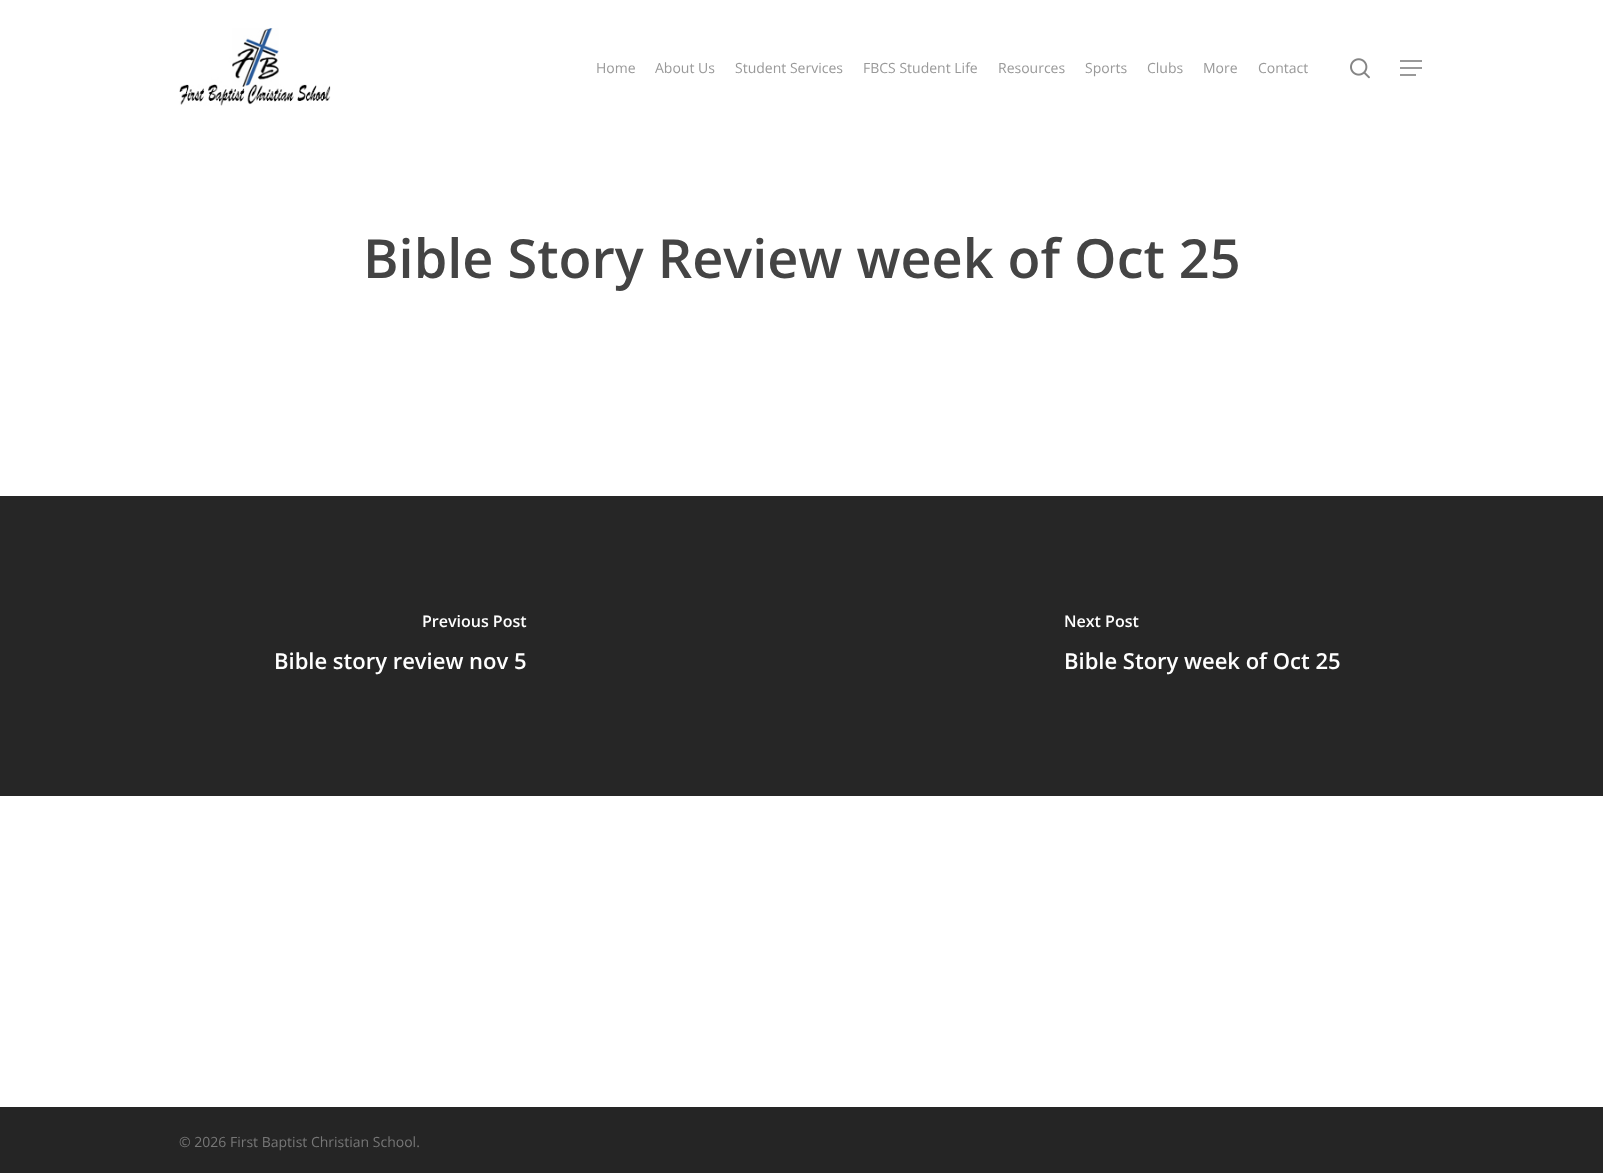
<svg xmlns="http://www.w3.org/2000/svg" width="1603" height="1173">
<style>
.a{font:14px Open Sans;fill:#999}
.b{font:600 54px Open Sans;fill:#444}
.c{font:600 16px Open Sans;fill:#fff}
.d{font:600 22px Open Sans;fill:#fff}
.e{font:14px Open Sans;fill:#777}
</style>
<rect width="100%" height="100%" fill="#fff"/>
<image href="1.png" x="179" y="28" width="152" height="78"/>
<image href="2.png" x="1350" y="58" width="20" height="21"/>
<path fill="#999" d="M1400 60h22v2H1400z"/>
<path fill="#999" d="M1400 74h16v2H1400z"/>
<path fill="#999" d="M1400 67h22v2H1400z"/>
<path fill="#262626" d="M0 496h1603v300H0z"/>
<path fill="#252525" d="M0 1107h1603v66H0z"/>
<text class="a" x="596" y="73">Home</text>
<text class="a" x="655" y="73">About Us</text>
<text class="a" x="735" y="73">Student Services</text>
<text class="a" x="863" y="73">FBCS Student Life</text>
<text class="a" x="998" y="73">Resources</text>
<text class="a" x="1085" y="73">Sports</text>
<text class="a" x="1147" y="73">Clubs</text>
<text class="a" x="1203" y="73">More</text>
<text class="a" x="1258" y="73">Contact</text>
<text class="b" x="363" y="278">Bible Story Review week of Oct 25</text>
<text class="c" x="422" y="627">Previous Post</text>
<text class="d" x="274" y="669">Bible story review nov 5</text>
<text class="c" x="1064" y="627">Next Post</text>
<text class="d" x="1064" y="669">Bible Story week of Oct 25</text>
<text class="e" x="179" y="1147">© 2026 First Baptist Christian School.</text>
</svg>
